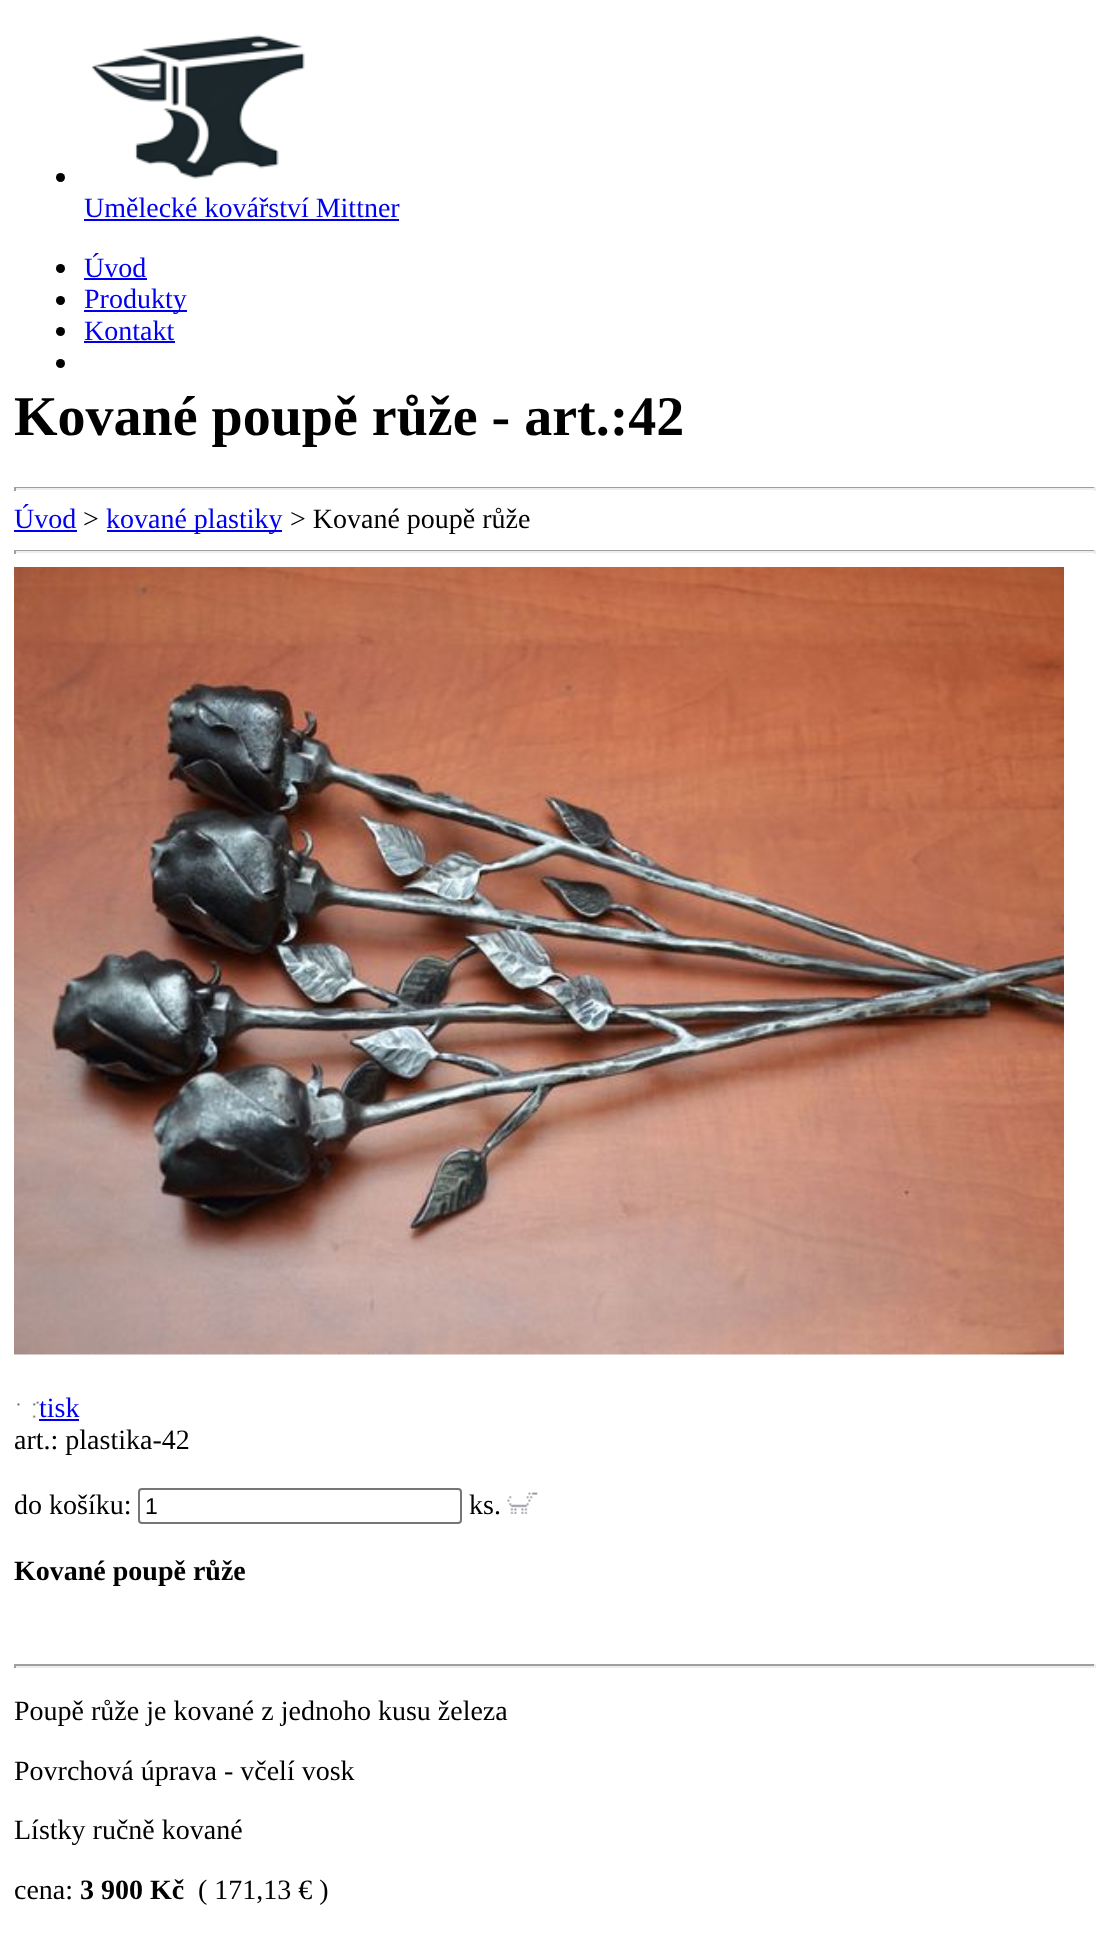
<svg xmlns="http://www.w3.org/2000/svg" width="1109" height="1939">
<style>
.a{font:28px Liberation Serif;fill:#00e}
.b{font:bold 56px Liberation Serif;fill:#000}
.c{font:28px Liberation Serif;fill:#000}
.d{font:23px Liberation Sans;fill:#000}
.e{font:bold 28px Liberation Serif;fill:#000}
</style>
<rect width="100%" height="100%" fill="#fff"/>
<circle fill="#000" cx="60.5" cy="177.5" r="4.5"/>
<image href="1.png" x="91" y="34" width="214" height="145"/>
<path fill="#00e" d="M84 219h315v2H84z"/>
<circle fill="#000" cx="60.5" cy="268.5" r="4.5"/>
<path fill="#00e" d="M84 278h63v2H84z"/>
<circle fill="#000" cx="60.5" cy="300.5" r="4.5"/>
<path fill="#00e" d="M84 310h103v2H84z"/>
<circle fill="#000" cx="60.5" cy="331.5" r="4.5"/>
<path fill="#00e" d="M84 341h91v2H84z"/>
<circle fill="#000" cx="60.5" cy="363.5" r="4.5"/>
<path fill="#9f9f9f" d="M14 487h1082v1H14z"/>
<path fill="#eee" d="M1094 487h2v4H1094z"/>
<path fill="#eee" d="M14 488h1082v2H14z"/>
<path fill="#9f9f9f" d="M14 487h2v4H14z"/>
<path fill="#00e" d="M14 530h63v2H14z"/>
<path fill="#00e" d="M107 530h175v2H107z"/>
<path fill="#9f9f9f" d="M14 550h1082v1H14z"/>
<path fill="#eee" d="M1094 550h2v4H1094z"/>
<path fill="#eee" d="M14 551h1082v2H14z"/>
<path fill="#9f9f9f" d="M14 550h2v4H14z"/>
<image href="2.png" x="14" y="567" width="1050" height="788"/>
<image href="3.png" x="17" y="1401" width="22" height="17"/>
<path fill="#00e" d="M39 1419h40v2H39z"/>
<rect fill="none" stroke="#767676" stroke-width="2" x="139" y="1489" width="322" height="34" rx="3"/>
<image href="4.png" x="507" y="1492" width="31" height="22"/>
<path fill="#9f9f9f" d="M14 1664h1082v2H14z"/>
<path fill="#eee" d="M1094 1664h2v4H1094z"/>
<path fill="#eee" d="M14 1666h1082v2H14z"/>
<path fill="#9f9f9f" d="M14 1664h2v4H14z"/>
<text class="a" x="84" y="217">Umělecké kovářství Mittner</text>
<text class="a" x="84" y="277">Úvod</text>
<text class="a" x="84" y="308">Produkty</text>
<text class="a" x="84" y="340">Kontakt</text>
<text class="b" x="14" y="435">Kované poupě růže - art.:42</text>
<text class="a" x="14" y="528">Úvod</text>
<text class="c" x="83" y="528">&gt;</text>
<text class="a" x="106" y="528">kované plastiky</text>
<text class="c" x="290" y="528">&gt; Kované poupě růže</text>
<text class="a" x="39" y="1417">tisk</text>
<text class="c" x="14" y="1449">art.: plastika-42</text>
<text class="c" x="14" y="1514">do košíku:</text>
<text class="d" x="145" y="1514">1</text>
<text class="c" x="469" y="1514">ks.</text>
<text class="e" x="14" y="1580">Kované poupě růže</text>
<text class="c" x="14" y="1720">Poupě růže je kované z jednoho kusu železa</text>
<text class="c" x="14" y="1780">Povrchová úprava - včelí vosk</text>
<text class="c" x="14" y="1839">Lístky ručně kované</text>
<text class="c" x="14" y="1899">cena:</text>
<text class="e" x="80" y="1899">3 900 Kč</text>
<text class="c" x="198" y="1899">( 171,13 € )</text>
</svg>
